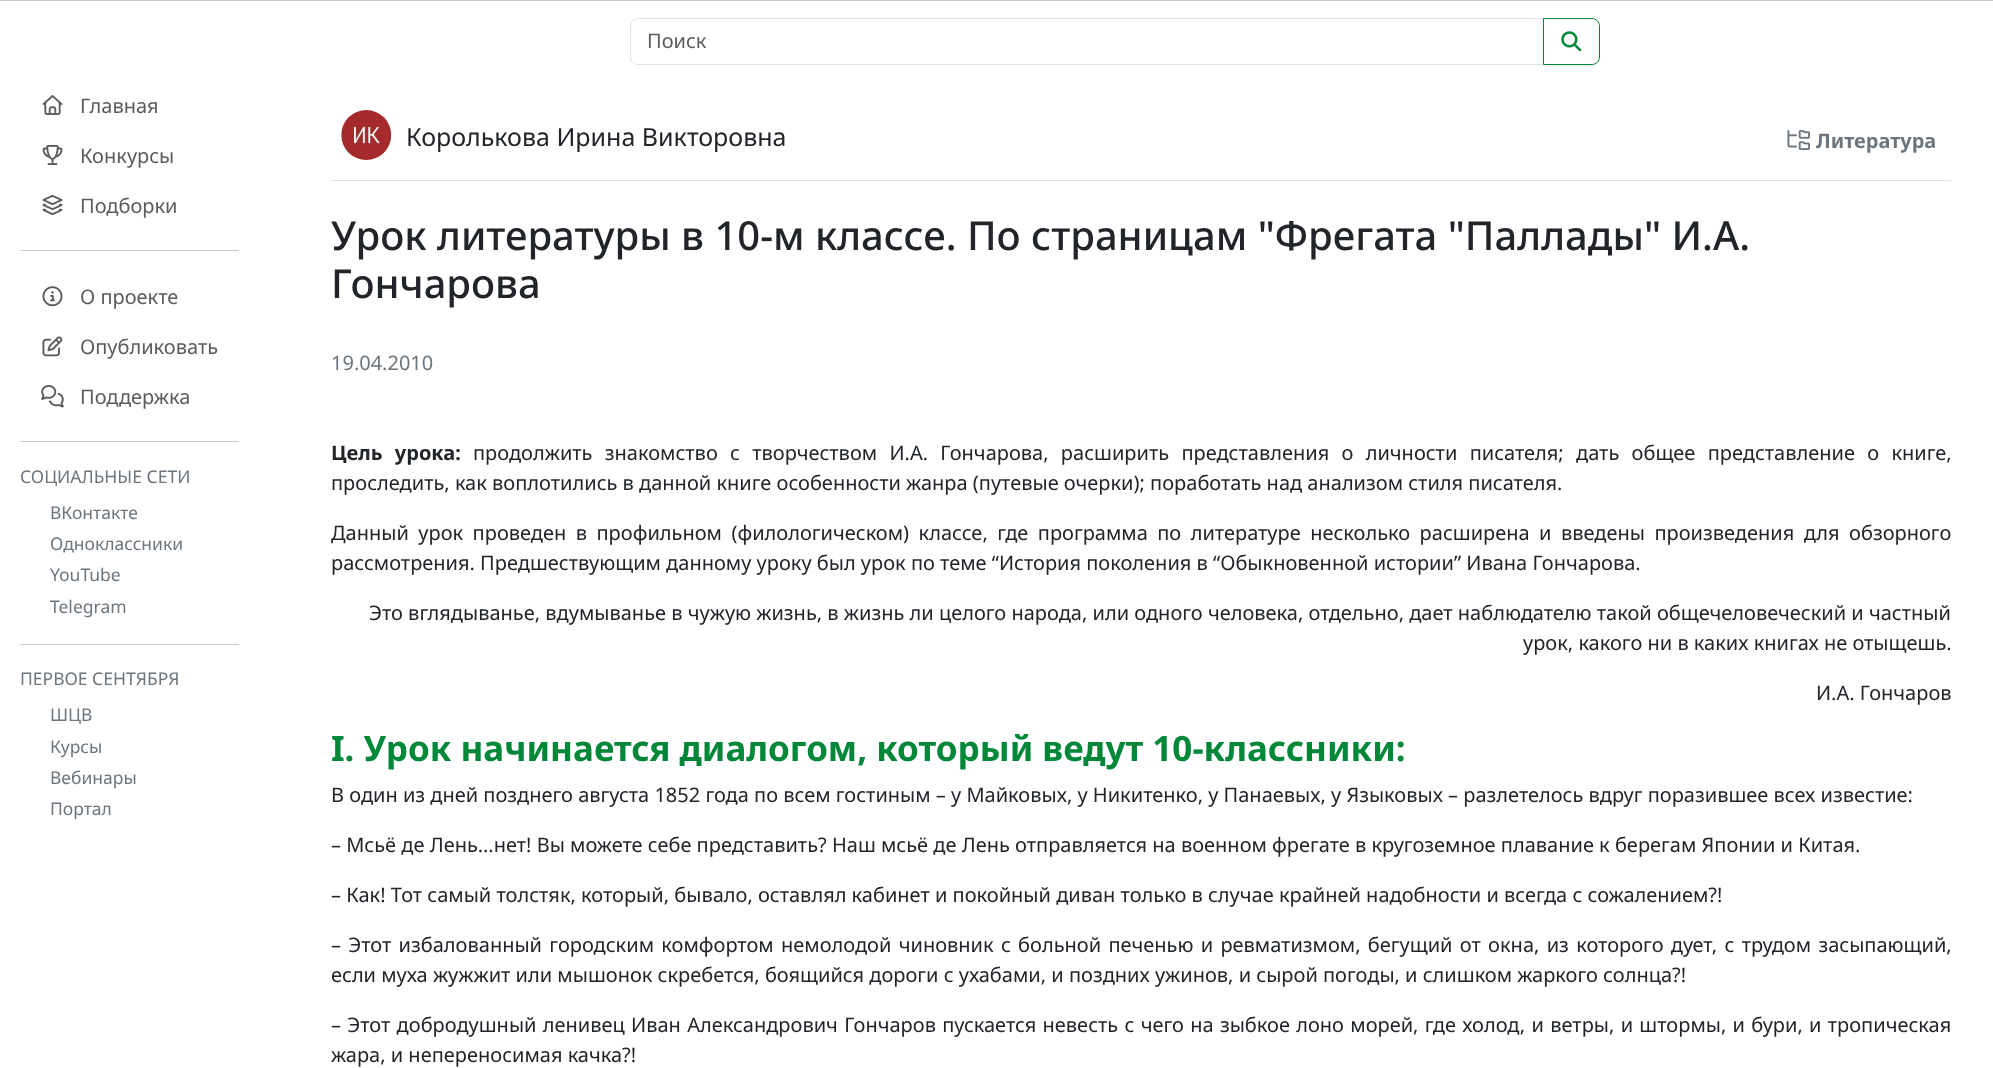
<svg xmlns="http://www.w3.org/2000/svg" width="1993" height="1068">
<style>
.a{font:20px Noto Sans;fill:#595c5f}
.b{font:17.5px Noto Sans;fill:#6c757d}
.c{font:25px Noto Sans;fill:#212529}
.d{font:bold 20px Noto Sans;fill:#6c757d}
.e{font:500 40px Noto Sans;fill:#212529}
.f{font:20px Noto Sans;fill:#6c757d}
.g{font:bold 20px Noto Sans;fill:#212529}
.h{font:20px Noto Sans;fill:#212529}
.i{font:bold 35px Noto Sans;fill:#008738}
</style>
<defs>
<clipPath id="clip1"><path d="M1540 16h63v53h-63zm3 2h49c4.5 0 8 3.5 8 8v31c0 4.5-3.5 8-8 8h-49z" clip-rule="evenodd"/></clipPath>
</defs>
<rect width="100%" height="100%" fill="#fff"/>
<path fill="#c8c9ca" d="M0 0h1993v1H0z"/>
<path fill="none" stroke="#dee2e6" d="M638 18.5h905.5v46h-905.5c-4 0-7.5-3.5-7.5-7.5v-31c0-4 3.5-7.5 7.5-7.5z"/>
<g clip-path="url(#clip1)">
<rect fill="#00000012" filter="blur(0.5px)" x="1543" y="19" width="57" height="47" rx="8"/>
</g>
<path fill="none" stroke="#008738" d="M1543.5 18.5h48.5c4 0 7.5 3.5 7.5 7.5v31c0 4-3.5 7.5-7.5 7.5h-48.5z"/>
<image href="1.png" x="1561" y="31" width="21" height="21"/>
<image href="2.png" x="42" y="95" width="21" height="20"/>
<image href="3.png" x="42" y="145" width="21" height="20"/>
<image href="4.png" x="42" y="195" width="21" height="20"/>
<path fill="#c8c9ca" d="M20 250h219v1H20z"/>
<image href="5.png" x="42" y="286" width="21" height="21"/>
<image href="6.png" x="42" y="336" width="21" height="21"/>
<image href="7.png" x="41" y="385" width="23" height="23"/>
<path fill="#c8c9ca" d="M20 441h219v1H20z"/>
<path fill="#c8c9ca" d="M20 644h219v1H20z"/>
<path fill="#dee2e6" d="M331 180h1620v1H331z"/>
<image href="8.png" x="341" y="110" width="51" height="50"/>
<image href="9.png" x="1787" y="130" width="23" height="20"/>
<text class="a" x="647" y="48">Поиск</text>
<text class="a" x="80" y="113">Главная</text>
<text class="a" x="80" y="163">Конкурсы</text>
<text class="a" x="80" y="213">Подборки</text>
<text class="a" x="80" y="304">О проекте</text>
<text class="a" x="80" y="354">Опубликовать</text>
<text class="a" x="80" y="404">Поддержка</text>
<text class="b" x="20" y="483">СОЦИАЛЬНЫЕ СЕТИ</text>
<text class="b" x="50" y="519">ВКонтакте</text>
<text class="b" x="50" y="550">Одноклассники</text>
<text class="b" x="50" y="581">YouTube</text>
<text class="b" x="50" y="613">Telegram</text>
<text class="b" x="20" y="685">ПЕРВОЕ СЕНТЯБРЯ</text>
<text class="b" x="50" y="721">ШЦВ</text>
<text class="b" x="50" y="753">Курсы</text>
<text class="b" x="50" y="784">Вебинары</text>
<text class="b" x="50" y="815">Портал</text>
<text class="c" x="406" y="146">Королькова Ирина Викторовна</text>
<text class="d" x="1816" y="148">Литература</text>
<text class="e" x="331" y="250">Урок литературы в 10-м классе. По страницам "Фрегата "Паллады" И.А.</text>
<text class="e" x="331" y="298">Гончарова</text>
<text class="f" x="331" y="370">19.04.2010</text>
<text class="g" x="331" y="460" word-spacing="7.1">Цель урока:</text>
<text class="h" x="473" y="460" word-spacing="7.1">продолжить знакомство с творчеством И.А. Гончарова, расширить представления о личности писателя; дать общее представление о книге,</text>
<text class="h" x="331" y="490">проследить, как воплотились в данной книге особенности жанра (путевые очерки); поработать над анализом стиля писателя.</text>
<text class="h" x="331" y="540" word-spacing="4.25">Данный урок проведен в профильном (филологическом) классе, где программа по литературе несколько расширена и введены произведения для обзорного</text>
<text class="h" x="331" y="570">рассмотрения. Предшествующим данному уроку был урок по теме “История поколения в “Обыкновенной истории” Ивана Гончарова.</text>
<text class="h" x="369" y="620">Это вглядыванье, вдумыванье в чужую жизнь, в жизнь ли целого народа, или одного человека, отдельно, дает наблюдателю такой общечеловеческий и частный</text>
<text class="h" x="1523" y="650">урок, какого ни в каких книгах не отыщешь.</text>
<text class="h" x="1816" y="700">И.А. Гончаров</text>
<text class="i" x="331" y="761">I. Урок начинается диалогом, который ведут 10-классники:</text>
<text class="h" x="331" y="802">В один из дней позднего августа 1852 года по всем гостиным – у Майковых, у Никитенко, у Панаевых, у Языковых – разлетелось вдруг поразившее всех известие:</text>
<text class="h" x="331" y="852">– Мсьё де Лень…нет! Вы можете себе представить? Наш мсьё де Лень отправляется на военном фрегате в кругоземное плавание к берегам Японии и Китая.</text>
<text class="h" x="331" y="902">– Как! Тот самый толстяк, который, бывало, оставлял кабинет и покойный диван только в случае крайней надобности и всегда с сожалением?!</text>
<text class="h" x="331" y="952" word-spacing="2.1">– Этот избалованный городским комфортом немолодой чиновник с больной печенью и ревматизмом, бегущий от окна, из которого дует, с трудом засыпающий,</text>
<text class="h" x="331" y="982">если муха жужжит или мышонок скребется, боящийся дороги с ухабами, и поздних ужинов, и сырой погоды, и слишком жаркого солнца?!</text>
<text class="h" x="331" y="1032" word-spacing="1.1">– Этот добродушный ленивец Иван Александрович Гончаров пускается невесть с чего на зыбкое лоно морей, где холод, и ветры, и штормы, и бури, и тропическая</text>
<text class="h" x="331" y="1062">жара, и непереносимая качка?!</text>
</svg>
